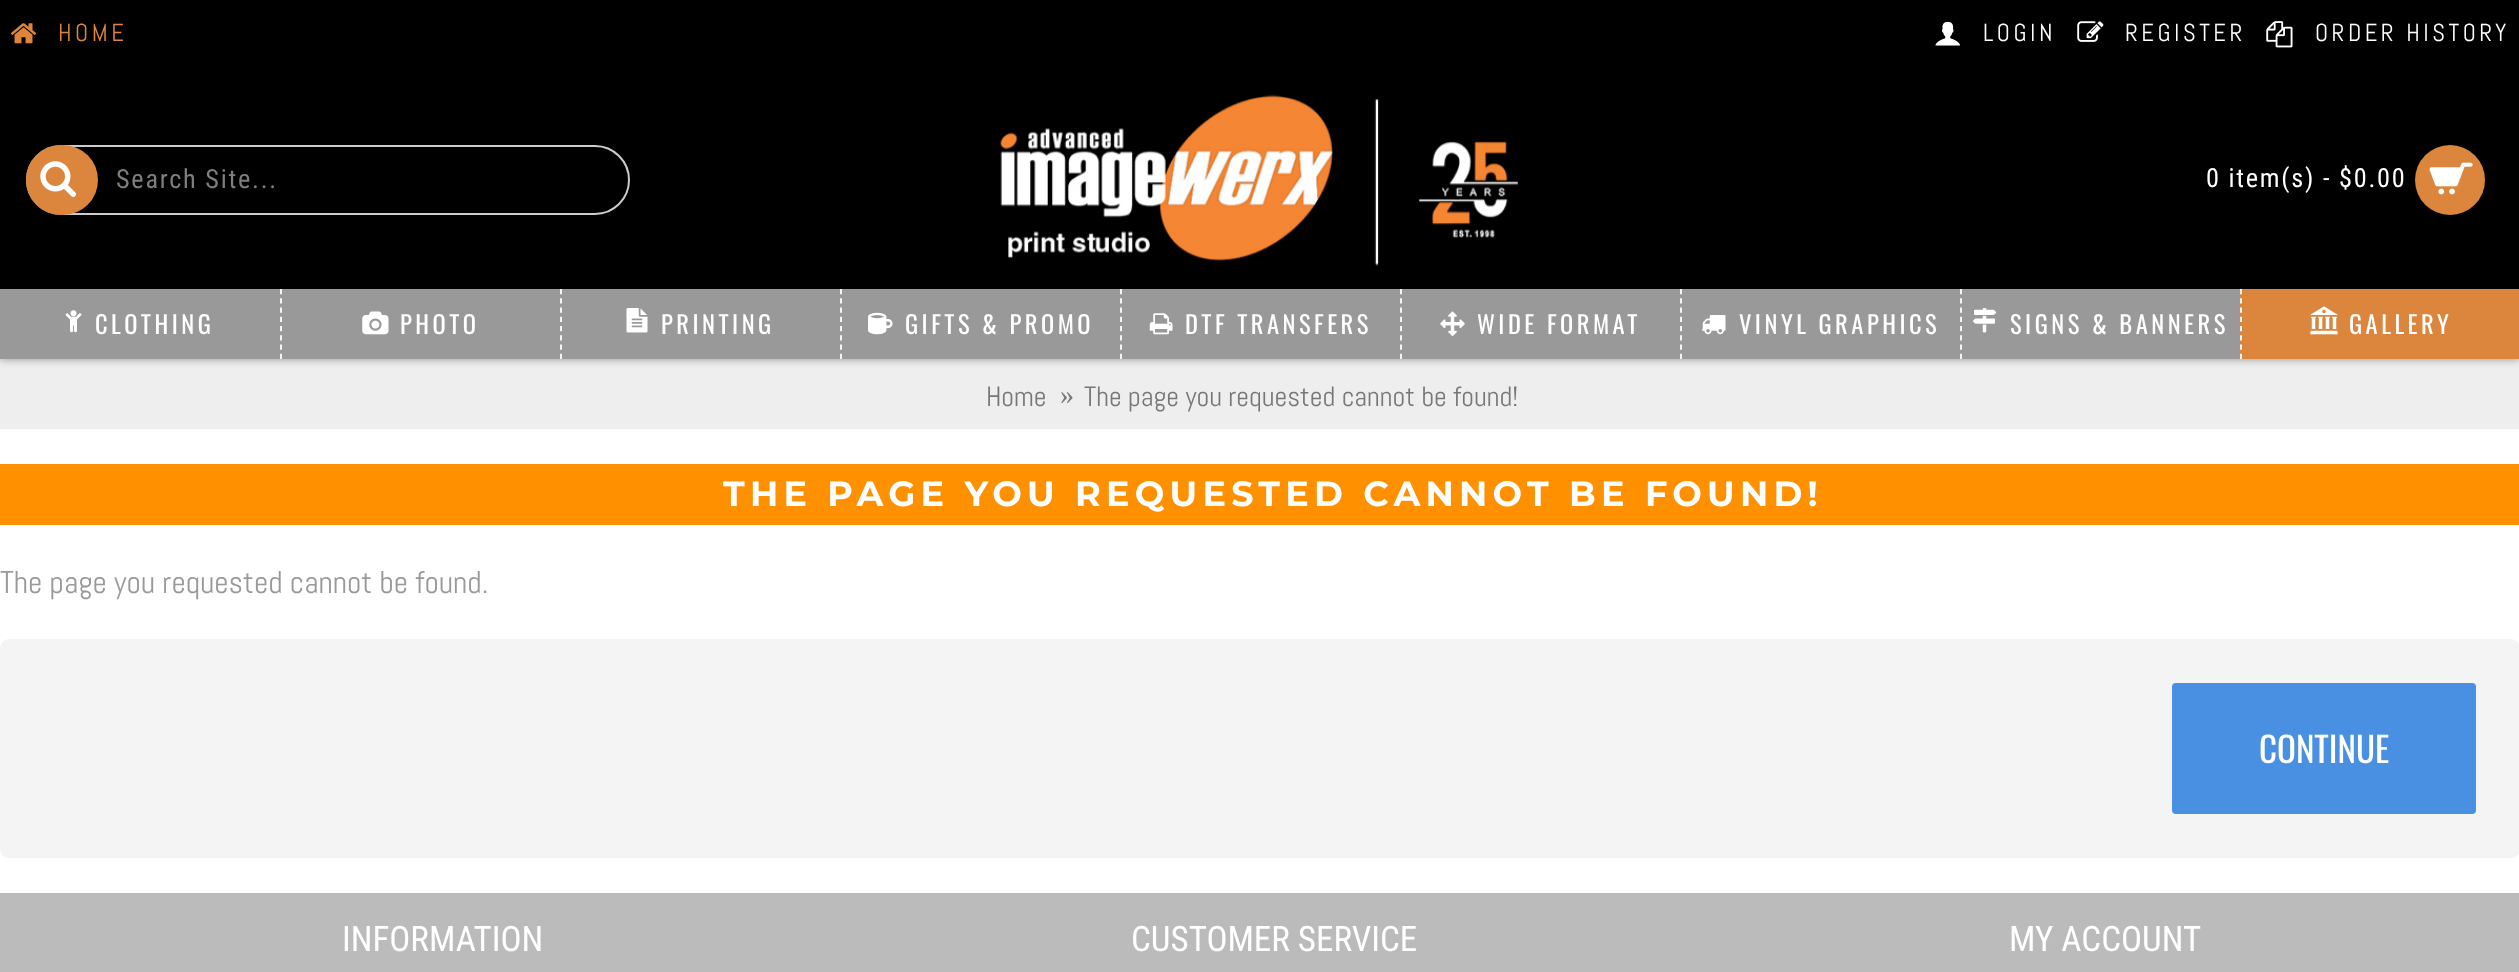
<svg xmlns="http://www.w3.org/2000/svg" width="2519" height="972">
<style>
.a{font:24.5px Abel;letter-spacing:3.5px;fill:#dc853d}
.b{font:24.5px Abel;letter-spacing:3.5px;fill:#fff}
.c{font:26.25px Roboto Condensed;letter-spacing:1.75px;fill:#807d7d}
.d{font:26.25px Roboto Condensed;letter-spacing:1.75px;fill:#fff}
.e{font:24.5px Oswald;letter-spacing:3.5px;fill:#fff}
.f{font:28px Abel;fill:#777}
.g{font:28px Liberation Serif;fill:#777}
.h{font:bold 35px Montserrat;letter-spacing:5.25px;fill:#fff}
.i{font:31.5px Abel;fill:#999}
.j{font:35px Oswald;fill:#fff}
.k{font:35px Roboto Condensed;fill:#fff}
</style>
<rect width="100%" height="100%" fill="#fff"/>
<path fill="#eee" d="M0 359h2519v70H0z"/>
<path fill="#00000066" filter="blur(4.5px)" d="M0 0h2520v359H0z"/>
<path fill="#000" d="M0 0h2519v289H0z"/>
<image href="1.png" x="11" y="23" width="26" height="21"/>
<image href="2.png" x="1935" y="21" width="25" height="25"/>
<image href="3.png" x="2077" y="21" width="27" height="21"/>
<image href="4.png" x="2266" y="21" width="27" height="27"/>
<rect fill="none" stroke="#ccc" stroke-width="2" x="27" y="146" width="602" height="68" rx="34"/>
<rect fill="#dc853d" x="26" y="145" width="72" height="70" rx="35"/>
<image href="5.png" x="40" y="161" width="36" height="36"/>
<image href="6.png" x="1000" y="94" width="518" height="172"/>
<circle fill="#dc853d" cx="2450" cy="180" r="35"/>
<image href="7.png" x="2429" y="162" width="44" height="33"/>
<path fill="#999" d="M0 289h2240v70H0z"/>
<image href="8.png" x="65" y="310" width="17" height="23"/>
<path fill="none" stroke="#fff" stroke-width="1.8" stroke-dasharray="5.25 4.01" d="M281 289v70"/>
<image href="9.png" x="362" y="311" width="27" height="24"/>
<path fill="none" stroke="#fff" stroke-width="1.8" stroke-dasharray="5.25 4.01" d="M561 289v70"/>
<image href="10.png" x="626" y="308" width="22" height="25"/>
<path fill="none" stroke="#fff" stroke-width="1.8" stroke-dasharray="5.25 4.01" d="M841 289v70"/>
<image href="11.png" x="868" y="312" width="25" height="23"/>
<path fill="none" stroke="#fff" stroke-width="1.8" stroke-dasharray="5.25 4.01" d="M1121 289v70"/>
<image href="12.png" x="1149" y="313" width="24" height="22"/>
<path fill="none" stroke="#fff" stroke-width="1.8" stroke-dasharray="5.25 4.01" d="M1401 289v70"/>
<image href="13.png" x="1440" y="311" width="25" height="25"/>
<path fill="none" stroke="#fff" stroke-width="1.8" stroke-dasharray="5.25 4.01" d="M1681 289v70"/>
<image href="14.png" x="1702" y="315" width="24" height="20"/>
<path fill="none" stroke="#fff" stroke-width="1.8" stroke-dasharray="5.25 4.01" d="M1961 289v70"/>
<image href="15.png" x="1972" y="308" width="25" height="25"/>
<path fill="#dc853d" d="M2240 289h279v70H2240z"/>
<path fill="none" stroke="#fff" stroke-width="1.8" stroke-dasharray="5.25 4.01" d="M2241 289v70"/>
<image href="16.png" x="2310" y="306" width="28" height="29"/>
<path fill="#ff9100" d="M0 464h2519v61H0z"/>
<rect fill="#f4f4f4" y="639" width="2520" height="219" rx="9"/>
<rect fill="#4a90e2" x="2172" y="683" width="304" height="131" rx="4"/>
<path fill="#bbb" d="M0 893h2519v79H0z"/>
<text class="a" x="58" y="41">HOME</text>
<text class="b" x="1983" y="41">LOGIN</text>
<text class="b" x="2125" y="41">REGISTER</text>
<text class="b" x="2315" y="41">ORDER HISTORY</text>
<text class="c" x="116" y="188">Search Site...</text>
<text class="d" x="2206" y="187">0 item(s) - $0.00</text>
<text class="e" x="95" y="334">CLOTHING</text>
<text class="e" x="400" y="334">PHOTO</text>
<text class="e" x="661" y="334">PRINTING</text>
<text class="e" x="905" y="334">GIFTS &amp; PROMO</text>
<text class="e" x="1185" y="334">DTF TRANSFERS</text>
<text class="e" x="1477" y="334">WIDE FORMAT</text>
<text class="e" x="1739" y="334">VINYL GRAPHICS</text>
<text class="e" x="2010" y="334">SIGNS &amp; BANNERS</text>
<text class="e" x="2349" y="334">GALLERY</text>
<text class="f" x="986" y="406">Home</text>
<text class="g" x="1060" y="404">»</text>
<text class="f" x="1084" y="406">The page you requested cannot be found!</text>
<text class="h" x="723" y="506">THE PAGE YOU REQUESTED CANNOT BE FOUND!</text>
<text class="i" x="0" y="593">The page you requested cannot be found.</text>
<text class="j" x="2259" y="763">CONTINUE</text>
<text class="k" x="342" y="951">INFORMATION</text>
<text class="k" x="1131" y="951">CUSTOMER SERVICE</text>
<text class="k" x="2009" y="951">MY ACCOUNT</text>
</svg>
